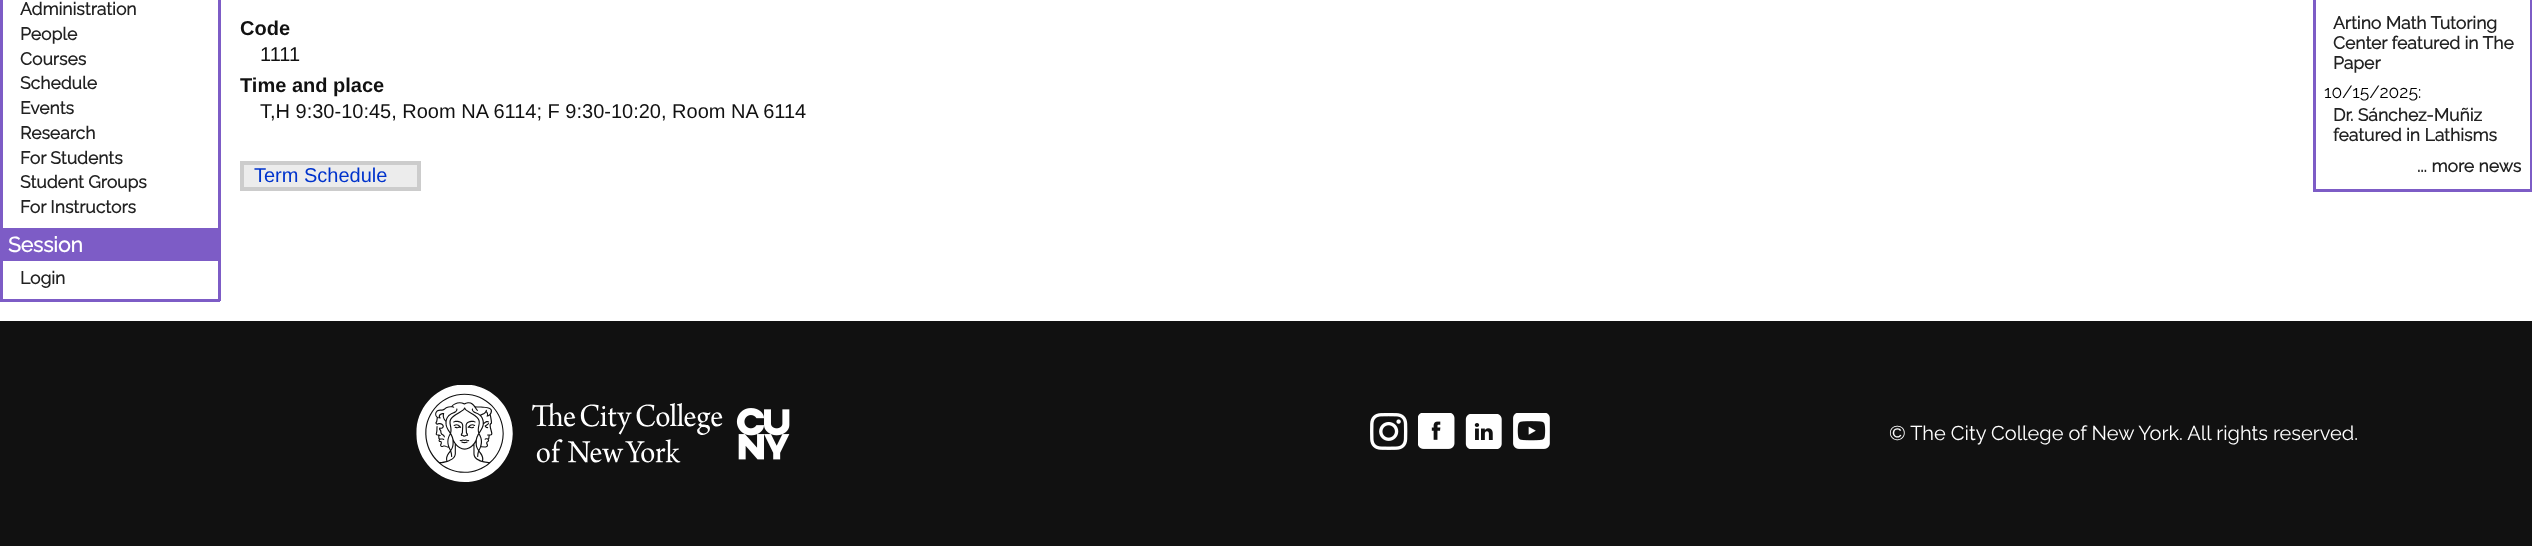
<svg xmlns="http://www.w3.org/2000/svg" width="2532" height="546">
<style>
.a{font:bold 17.5px Raleway;fill:#222}
.b{font:bold 21px Raleway;fill:#fff}
.c{font:bold 20px Liberation Sans;fill:#111}
.d{font:20px Liberation Sans;fill:#111}
.e{font:20px Liberation Sans;fill:#03c}
.f{font:100 17.5px Raleway;fill:#000}
.g{font:100 20px Raleway;fill:#fff}
</style>
<rect width="100%" height="100%" fill="#fff"/>
<path fill="#7d5cc6" d="M218 0h3v301H218z"/>
<path fill="#7d5cc6" d="M0 0h3v228H0z"/>
<path fill="#7d5cc6" d="M0 299h220v3H0z"/>
<path fill="#7d5cc6" d="M0 228h3v73H0z"/>
<path fill="#7d5cc6" d="M3 228h215v33H3z"/>
<path fill="#ececec" stroke="#ccc" stroke-width="4" d="M242 163h177v26H242z"/>
<path fill="#7d5cc6" d="M2530 0h2v191H2530z"/>
<path fill="#7d5cc6" d="M2313 189h219v3H2313z"/>
<path fill="#7d5cc6" d="M2313 0h3v191H2313z"/>
<path fill="#111" d="M0 321h2532v225H0z"/>
<image href="1.png" x="416" y="385" width="307" height="97"/>
<image href="2.png" x="736" y="408" width="54" height="52"/>
<image href="3.png" x="1370" y="413" width="38" height="37"/>
<image href="4.png" x="1418" y="413" width="37" height="36"/>
<image href="5.png" x="1465" y="414" width="37" height="35"/>
<image href="6.png" x="1513" y="413" width="37" height="36"/>
<text class="a" x="20" y="15">Administration</text>
<text class="a" x="20" y="40">People</text>
<text class="a" x="20" y="65">Courses</text>
<text class="a" x="20" y="89">Schedule</text>
<text class="a" x="20" y="114">Events</text>
<text class="a" x="20" y="139">Research</text>
<text class="a" x="20" y="164">For Students</text>
<text class="a" x="20" y="188">Student Groups</text>
<text class="a" x="20" y="213">For Instructors</text>
<text class="b" x="8" y="252">Session</text>
<text class="a" x="20" y="284">Login</text>
<text class="c" x="240" y="35">Code</text>
<text class="d" x="260" y="61">1111</text>
<text class="c" x="240" y="92">Time and place</text>
<text class="d" x="260" y="118">T,H 9:30-10:45, Room NA 6114; F 9:30-10:20, Room NA 6114</text>
<text class="e" x="254" y="182">Term Schedule</text>
<text class="a" x="2333" y="29">Artino Math Tutoring</text>
<text class="a" x="2333" y="49">Center featured in The</text>
<text class="a" x="2333" y="69">Paper</text>
<text class="f" x="2324" y="98">10/15/2025:</text>
<text class="a" x="2333" y="121">Dr. Sánchez-Muñiz</text>
<text class="a" x="2333" y="141">featured in Lathisms</text>
<text class="a" x="2417" y="172">... more news</text>
<text class="g" x="1889" y="440">© The City College of New York. All rights reserved.</text>
</svg>
